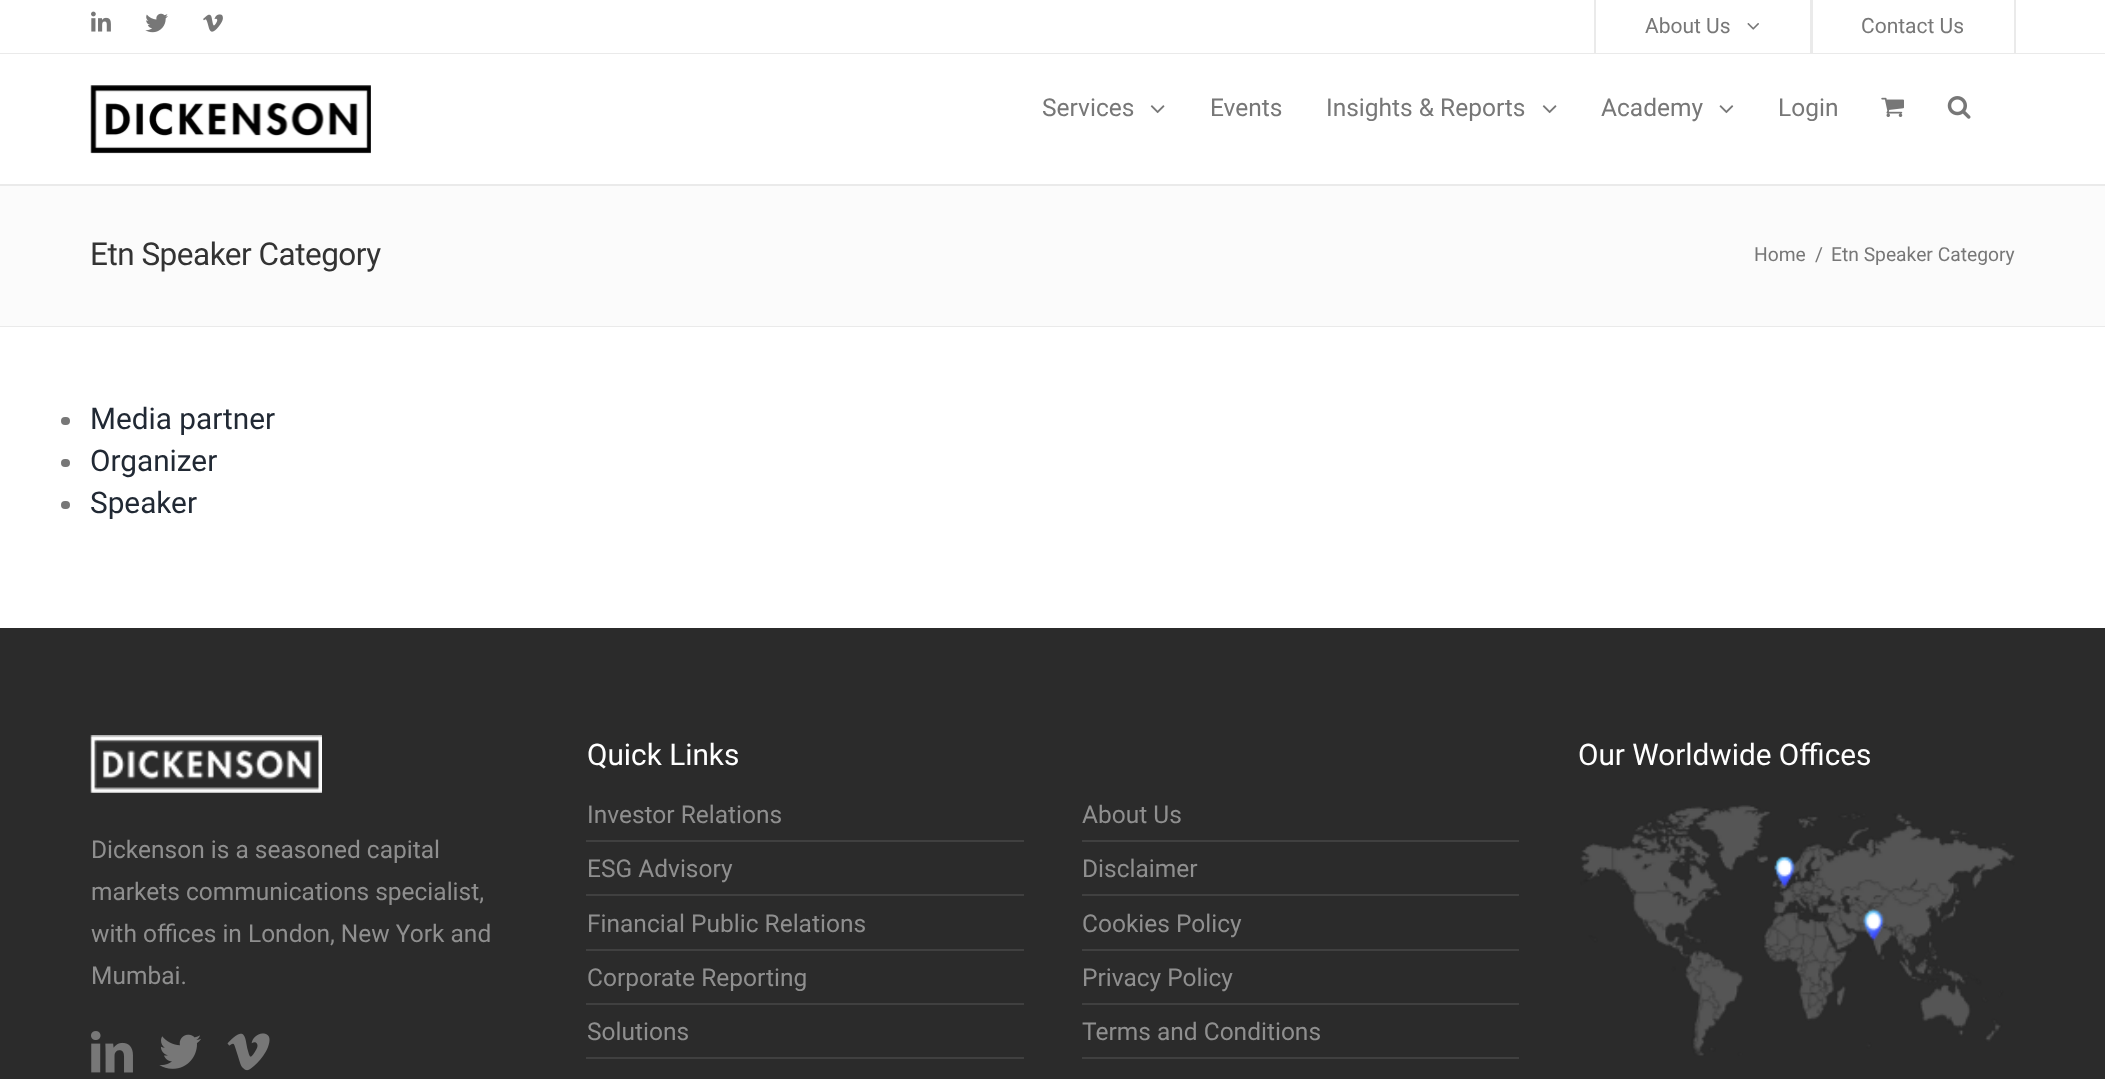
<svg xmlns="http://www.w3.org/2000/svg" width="2105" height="1079">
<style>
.a{font:21px Roboto;fill:#777}
.b{font:24.5px Roboto;fill:#777}
.c{font:31.5px Roboto;letter-spacing:-0.5px;fill:#333}
.d{font:19.25px Roboto;fill:#777}
.e{font:29.75px Roboto;fill:#212934}
.f{font:29.75px Roboto;fill:#fff}
.g{font:24.5px Roboto;fill:#8f8f8f}
</style>
<rect width="100%" height="100%" fill="#fff"/>
<path fill="#eaeaea" d="M0 53h2105v1H0z"/>
<image href="1.png" x="91" y="11" width="20" height="21"/>
<image href="2.png" x="145" y="13" width="23" height="20"/>
<image href="3.png" x="203" y="14" width="20" height="18"/>
<path fill="#eaeaea" d="M1810 0h3v53H1810z"/>
<path fill="#eaeaea" d="M1594 0h2v53H1594z"/>
<image href="4.png" x="1747" y="23" width="12" height="7"/>
<path fill="#eaeaea" d="M2014 0h2v53H2014z"/>
<path fill="#eaeaea" d="M0 184h2105v2H0z"/>
<image href="5.png" x="90" y="85" width="281" height="69"/>
<image href="6.png" x="1150" y="105" width="15" height="9"/>
<image href="6.png" x="1542" y="105" width="15" height="9"/>
<image href="7.png" x="1719" y="105" width="15" height="9"/>
<image href="8.png" x="1881" y="97" width="23" height="20"/>
<image href="9.png" x="1947" y="96" width="24" height="23"/>
<path fill="#fbfbfb" d="M0 186h2105v140H0z"/>
<path fill="#eaeaea" d="M0 326h2105v1H0z"/>
<rect fill="#777" x="61" y="417" width="9" height="8" rx="4"/>
<rect fill="#777" x="61" y="459" width="9" height="8" rx="4"/>
<rect fill="#777" x="61" y="501" width="9" height="8" rx="4"/>
<path fill="#2b2b2b" d="M0 628h2105v451H0z"/>
<path fill="#404040" d="M586 840h438v2H586z"/>
<path fill="#404040" d="M586 894h438v2H586z"/>
<path fill="#404040" d="M586 949h438v2H586z"/>
<path fill="#404040" d="M586 1003h438v2H586z"/>
<path fill="#404040" d="M586 1057h438v2H586z"/>
<image href="10.png" x="1580" y="805" width="435" height="251"/>
<image href="11.png" x="90" y="735" width="232" height="58"/>
<image href="12.png" x="91" y="1031" width="42" height="42"/>
<image href="13.png" x="159" y="1034" width="42" height="35"/>
<image href="14.png" x="227" y="1033" width="43" height="38"/>
<path fill="#404040" d="M1082 840h437v2H1082z"/>
<path fill="#404040" d="M1082 894h437v2H1082z"/>
<path fill="#404040" d="M1082 949h437v2H1082z"/>
<path fill="#404040" d="M1082 1003h437v2H1082z"/>
<path fill="#404040" d="M1082 1057h437v2H1082z"/>
<text class="a" x="1645" y="33">About Us</text>
<text class="a" x="1861" y="33">Contact Us</text>
<text class="b" x="1042" y="116">Services</text>
<text class="b" x="1210" y="116">Events</text>
<text class="b" x="1326" y="116">Insights &amp; Reports</text>
<text class="b" x="1601" y="116">Academy</text>
<text class="b" x="1778" y="116">Login</text>
<text class="c" x="90" y="265">Etn Speaker Category</text>
<text class="d" x="1754" y="261">Home</text>
<text class="d" x="1815" y="261">/</text>
<text class="d" x="1831" y="261">Etn Speaker Category</text>
<text class="e" x="90" y="429">Media partner</text>
<text class="e" x="90" y="471">Organizer</text>
<text class="e" x="90" y="513">Speaker</text>
<text class="f" x="587" y="765">Quick Links</text>
<text class="g" x="587" y="823">Investor Relations</text>
<text class="g" x="587" y="877">ESG Advisory</text>
<text class="g" x="587" y="932">Financial Public Relations</text>
<text class="g" x="587" y="986">Corporate Reporting</text>
<text class="g" x="587" y="1040">Solutions</text>
<text class="f" x="1578" y="765">Our Worldwide Offices</text>
<text class="g" x="91" y="858">Dickenson is a seasoned capital</text>
<text class="g" x="91" y="900">markets communications specialist,</text>
<text class="g" x="91" y="942">with offices in London, New York and</text>
<text class="g" x="91" y="984">Mumbai.</text>
<text class="g" x="1082" y="823">About Us</text>
<text class="g" x="1082" y="877">Disclaimer</text>
<text class="g" x="1082" y="932">Cookies Policy</text>
<text class="g" x="1082" y="986">Privacy Policy</text>
<text class="g" x="1082" y="1040">Terms and Conditions</text>
</svg>
